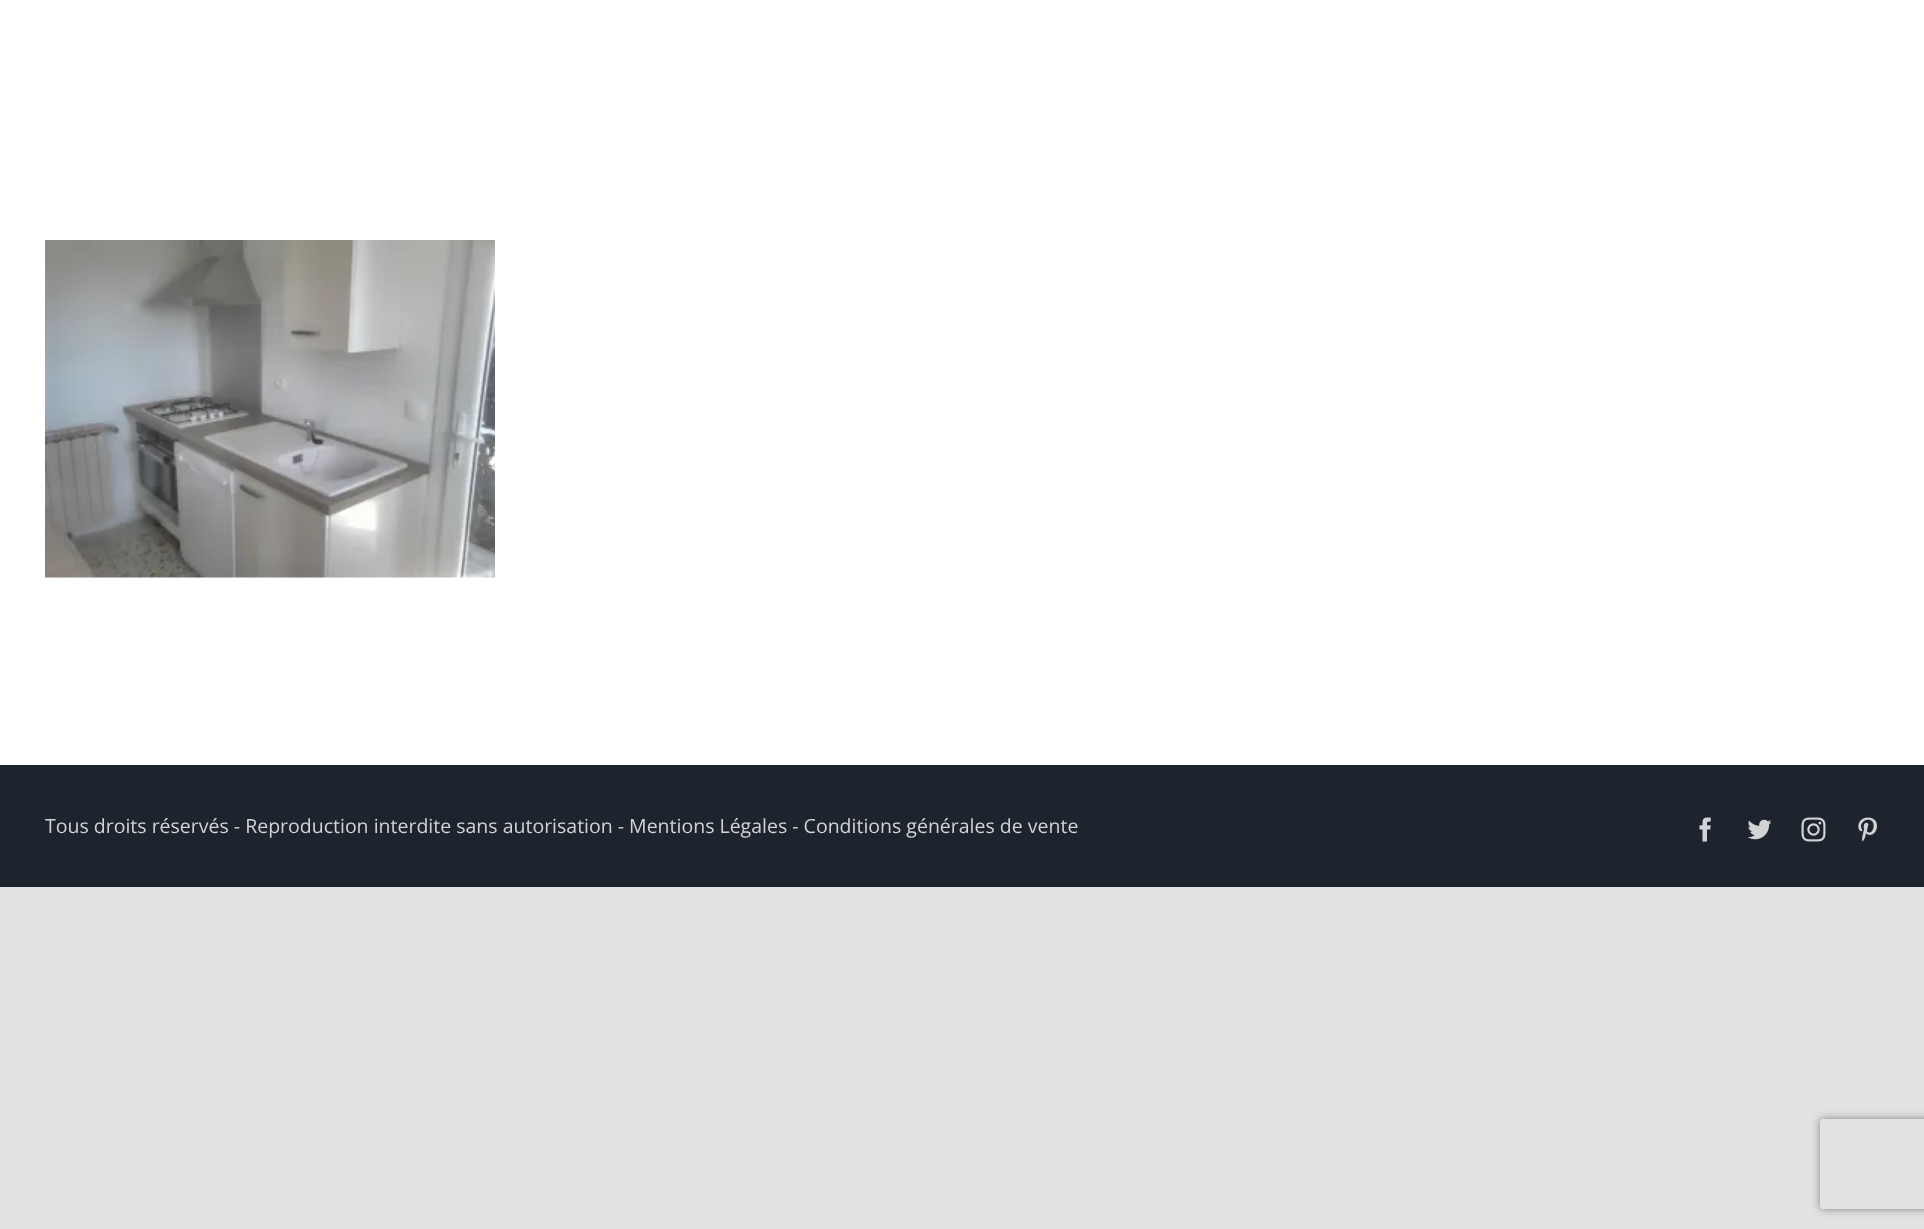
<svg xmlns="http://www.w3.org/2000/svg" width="1924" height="1229">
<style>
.a{font:19.5px Open Sans;fill:#d2d3d5}
</style>
<defs>
<clipPath id="clip1"><path d="M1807 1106h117v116h-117zm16 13h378c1.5 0 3 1.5 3 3v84c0 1.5-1.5 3-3 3h-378c-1.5 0-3-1.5-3-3v-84c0-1.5 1.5-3 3-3z" clip-rule="evenodd"/></clipPath>
</defs>
<rect width="100%" height="100%" fill="#e2e2e2"/>
<path fill="#fff" d="M0 0h1924v765H0z"/>
<image href="1.png" x="45" y="240" width="450" height="338"/>
<path fill="#1d242d" d="M0 765h1924v122H0z"/>
<image href="2.png" x="1699" y="817" width="12" height="25"/>
<image href="3.png" x="1747" y="819" width="25" height="21"/>
<image href="4.png" x="1801" y="817" width="25" height="25"/>
<image href="5.png" x="1858" y="817" width="19" height="25"/>
<g clip-path="url(#clip1)">
<rect fill="#808080" filter="blur(4px)" x="1820" y="1119" width="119" height="90" rx="3"/>
</g>
<text class="a" x="45" y="833">Tous droits réservés - Reproduction interdite sans autorisation - Mentions Légales - Conditions générales de vente</text>
</svg>
